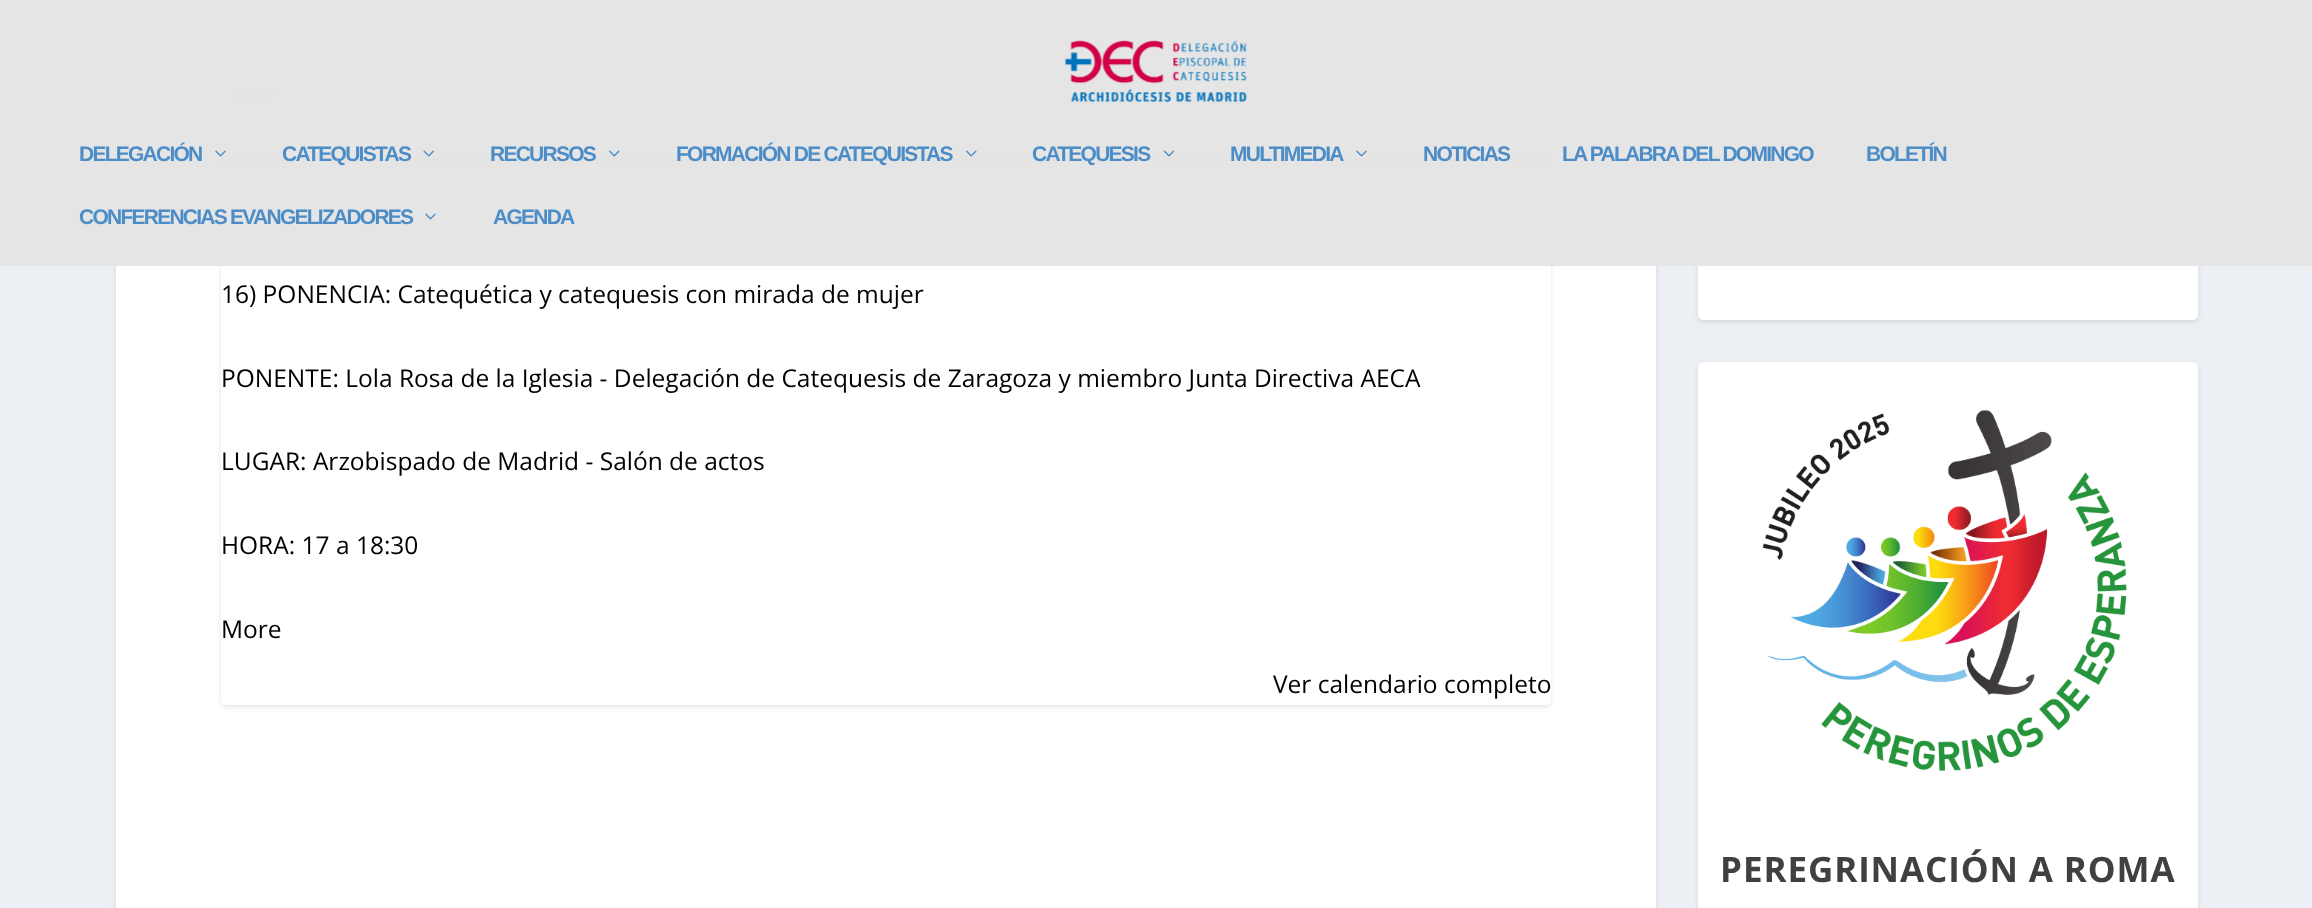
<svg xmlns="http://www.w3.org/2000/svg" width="2312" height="908">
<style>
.a{font:bold 21px Liberation Sans;letter-spacing:-1.75px;fill:#4c8dc7}
.b{font:24.5px Open Sans;fill:#000}
.c{font:bold 35px Open Sans;letter-spacing:0.9px;fill:#404040}
</style>
<rect width="100%" height="100%" fill="#ecf0f5"/>
<rect fill="#0000001a" filter="blur(2.5px)" x="116" y="-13" width="1540" height="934" rx="5"/>
<path fill="#fff" d="M116 0h1540v908H116z"/>
<rect fill="#0000001a" filter="blur(2.5px)" x="221" y="51" width="1330" height="656" rx="5"/>
<rect fill="#fff" x="221" y="49" width="1330" height="656" rx="5"/>
<path fill="#000" d="M221 159h1330v2H221z"/>
<path fill="none" stroke="#000" stroke-width="1.8" stroke-dasharray="1.75 1.75" d="M234.5 95.5h43"/>
<rect fill="#0000001a" filter="blur(2.5px)" x="1698" y="-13" width="500" height="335" rx="5"/>
<rect fill="#fff" x="1698" y="-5" width="500" height="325" rx="5"/>
<path fill="#e5e5e5fc" d="M0 0h2312v266H0z"/>
<image href="1.png" x="1064" y="40" width="183" height="63"/>
<image href="2.png" x="215" y="150" width="11" height="7"/>
<image href="3.png" x="423" y="150" width="11" height="7"/>
<image href="4.png" x="609" y="150" width="11" height="7"/>
<image href="4.png" x="966" y="150" width="11" height="7"/>
<image href="5.png" x="1163" y="150" width="12" height="7"/>
<image href="6.png" x="1356" y="150" width="11" height="7"/>
<image href="7.png" x="425" y="213" width="11" height="7"/>
<rect fill="#0000001a" filter="blur(2.5px)" x="1698" y="364" width="500" height="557" rx="5"/>
<rect fill="#fff" x="1698" y="362" width="500" height="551" rx="5"/>
<image href="8.png" x="1762" y="410" width="365" height="361"/>
<text class="a" x="79" y="161">DELEGACIÓN</text>
<text class="a" x="282" y="161">CATEQUISTAS</text>
<text class="a" x="490" y="161">RECURSOS</text>
<text class="a" x="676" y="161">FORMACIÓN DE CATEQUISTAS</text>
<text class="a" x="1032" y="161">CATEQUESIS</text>
<text class="a" x="1230" y="161">MULTIMEDIA</text>
<text class="a" x="1423" y="161">NOTICIAS</text>
<text class="a" x="1562" y="161">LA PALABRA DEL DOMINGO</text>
<text class="a" x="1866" y="161">BOLETÍN</text>
<text class="a" x="79" y="224">CONFERENCIAS EVANGELIZADORES</text>
<text class="a" x="493" y="224">AGENDA</text>
<text class="b" x="221" y="303">16) PONENCIA: Catequética y catequesis con mirada de mujer</text>
<text class="b" x="221" y="387">PONENTE: Lola Rosa de la Iglesia - Delegación de Catequesis de Zaragoza y miembro Junta Directiva AECA</text>
<text class="b" x="221" y="470">LUGAR: Arzobispado de Madrid - Salón de actos</text>
<text class="b" x="221" y="554">HORA: 17 a 18:30</text>
<text class="b" x="221" y="638">More</text>
<text class="b" x="1273" y="693">Ver calendario completo</text>
<text class="c" x="1720" y="882">PEREGRINACIÓN A ROMA</text>
</svg>
